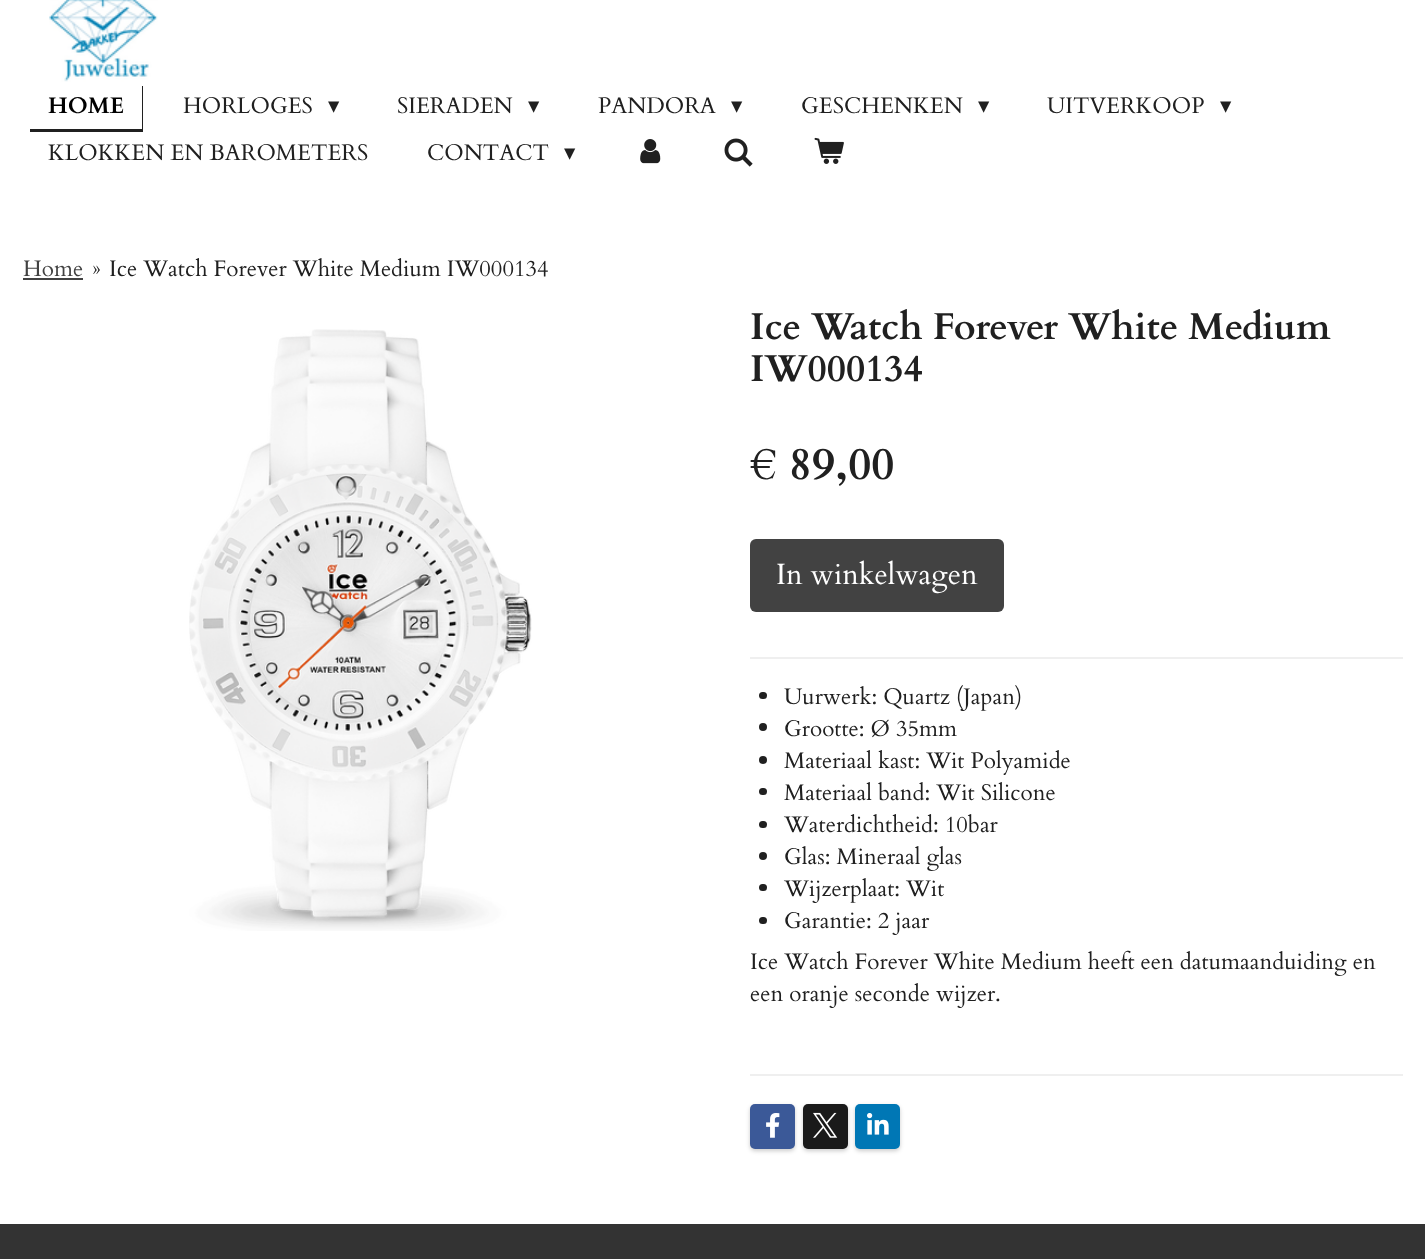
<svg xmlns="http://www.w3.org/2000/svg" width="1425" height="1259">
<style>
.a{font:bold 22.5px Cardo;fill:#000}
.b{font:22.5px Cardo;fill:#202020}
.c{font:22.5px DejaVu Sans;fill:#202020}
.d{font:22.5px Cardo;fill:#424242}
.e{font:bold 37.5px Cardo;fill:#202020}
.f{font:bold 45px Cardo;fill:#202020}
.g{font:29.25px Cardo;fill:#fff}
</style>
<rect width="100%" height="100%" fill="#fff"/>
<image href="1.png" x="49" y="0" width="109" height="82"/>
<path fill="#202020" d="M30 129v3h113v-46h-1v43z"/>
<image href="2.png" x="640" y="139" width="21" height="25"/>
<image href="3.png" x="724" y="138" width="29" height="29"/>
<image href="4.png" x="814" y="137" width="30" height="27"/>
<path fill="#424242" d="M23 278h60v2H23z"/>
<image href="5.png" x="189" y="329" width="343" height="602"/>
<rect fill="#424242" x="750" y="539" width="254" height="73" rx="6"/>
<path fill="#efefef" d="M750 657h653v2H750z"/>
<rect fill="#202020" x="759" y="692" width="8" height="7" rx="3.5"/>
<circle fill="#202020" cx="763" cy="727" r="4"/>
<circle fill="#202020" cx="763" cy="760" r="4"/>
<rect fill="#202020" x="759" y="788" width="8" height="7" rx="3.5"/>
<rect fill="#202020" x="759" y="821" width="8" height="7" rx="3.5"/>
<circle fill="#202020" cx="763" cy="856" r="4"/>
<rect fill="#202020" x="759" y="884" width="8" height="7" rx="3.5"/>
<rect fill="#202020" x="759" y="917" width="8" height="7" rx="3.5"/>
<path fill="#efefef" d="M750 1074h653v2H750z"/>
<rect fill="#00000033" filter="blur(2px)" x="750" y="1106" width="45" height="45" rx="5"/>
<rect fill="#3b5998" x="750" y="1104" width="45" height="45" rx="5"/>
<image href="6.png" x="766" y="1113" width="14" height="25"/>
<rect fill="#00000033" filter="blur(2px)" x="803" y="1106" width="45" height="45" rx="5"/>
<rect fill="#1a1a1a" x="803" y="1104" width="45" height="45" rx="5"/>
<image href="7.png" x="813" y="1112" width="25" height="26"/>
<rect fill="#00000033" filter="blur(2px)" x="855" y="1106" width="45" height="45" rx="5"/>
<rect fill="#0077b5" x="855" y="1104" width="45" height="45" rx="5"/>
<image href="8.png" x="867" y="1113" width="22" height="22"/>
<path fill="#333" d="M0 1224h1425v35H0z"/>
<text class="a" x="48" y="113">HOME</text>
<text class="b" x="183" y="113">HORLOGES</text>
<text class="c" x="328" y="113">▾</text>
<text class="b" x="397" y="113">SIERADEN</text>
<text class="c" x="528" y="113">▾</text>
<text class="b" x="598" y="113">PANDORA</text>
<text class="c" x="731" y="113">▾</text>
<text class="b" x="801" y="113">GESCHENKEN</text>
<text class="c" x="978" y="113">▾</text>
<text class="b" x="1047" y="113">UITVERKOOP</text>
<text class="c" x="1220" y="113">▾</text>
<text class="b" x="48" y="160">KLOKKEN EN BAROMETERS</text>
<text class="b" x="427" y="160">CONTACT</text>
<text class="c" x="564" y="160">▾</text>
<text class="d" x="23" y="276">Home</text>
<text class="b" x="92" y="276">»</text>
<text class="b" x="109" y="276">Ice Watch Forever White Medium IW000134</text>
<text class="e" x="750" y="339">Ice Watch Forever White Medium</text>
<text class="e" x="750" y="381">IW000134</text>
<text class="f" x="750" y="479">€ 89,00</text>
<text class="g" x="776" y="584">In winkelwagen</text>
<text class="b" x="784" y="704">Uurwerk: Quartz (Japan)</text>
<text class="b" x="784" y="736">Grootte: Ø 35mm</text>
<text class="b" x="784" y="768">Materiaal kast: Wit Polyamide</text>
<text class="b" x="784" y="800">Materiaal band: Wit Silicone</text>
<text class="b" x="784" y="832">Waterdichtheid: 10bar</text>
<text class="b" x="784" y="864">Glas: Mineraal glas</text>
<text class="b" x="784" y="896">Wijzerplaat: Wit</text>
<text class="b" x="784" y="928">Garantie: 2 jaar</text>
<text class="b" x="750" y="969">Ice Watch Forever White Medium heeft een datumaanduiding en</text>
<text class="b" x="750" y="1001">een oranje seconde wijzer.</text>
</svg>
